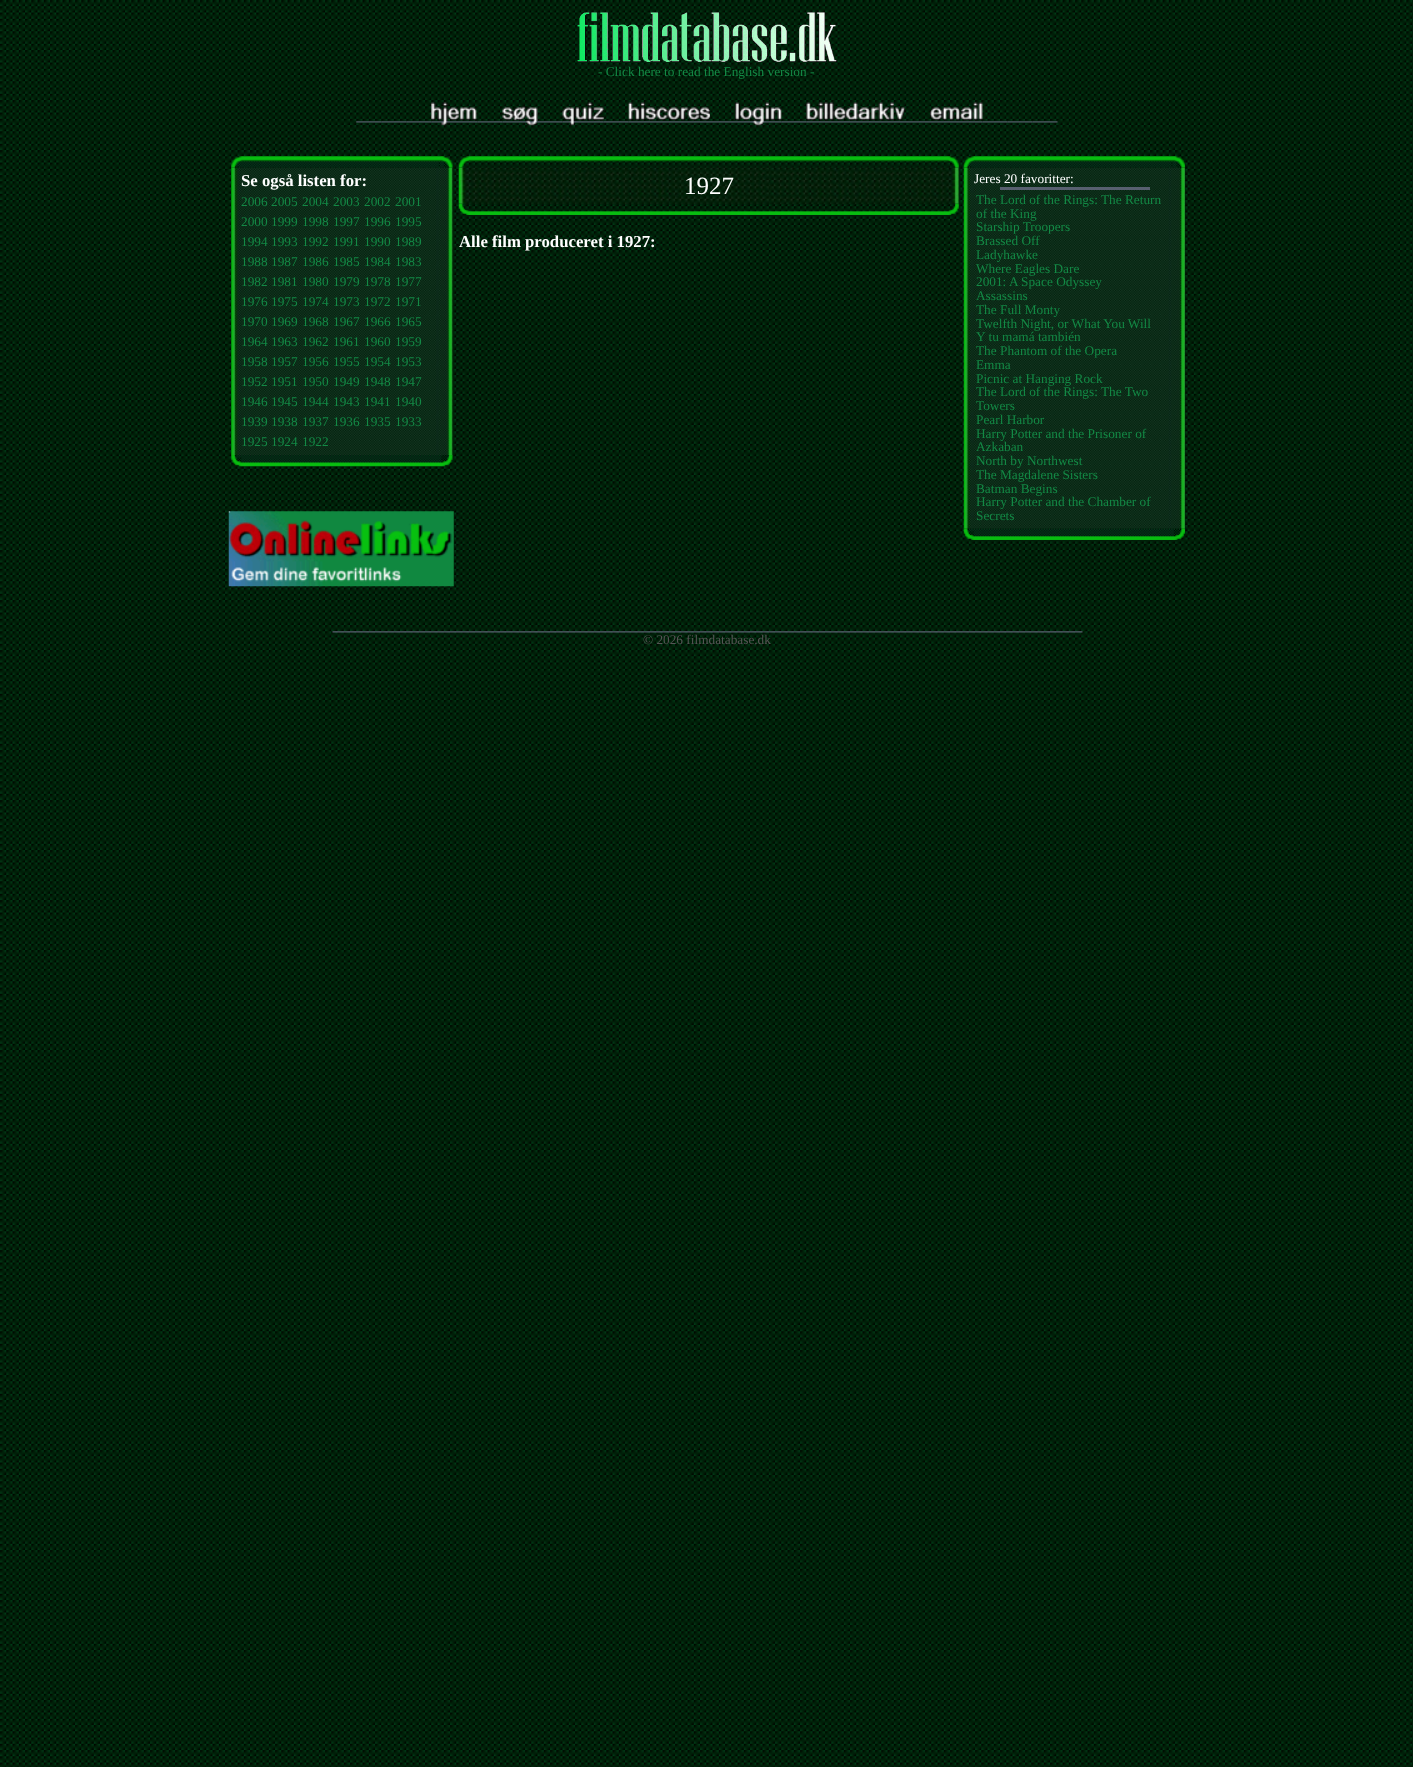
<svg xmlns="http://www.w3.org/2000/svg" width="1413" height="1767">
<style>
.a{font:13.3px Liberation Serif;fill:#138945}
.b{font:bold 16.75px Liberation Serif;fill:#fff}
.c{font:25px Liberation Serif;fill:#fff}
.d{font:13.3px Liberation Serif;fill:#fff}
.e{font:13.3px Liberation Serif;fill:#555}
</style>
<rect width="100%" height="100%" fill="#fff"/>
<image href="1.png" x="0" y="0" width="1413" height="1767"/>
<image href="2.png" x="577" y="12" width="260" height="50"/>
<image href="3.png" x="356" y="121" width="26" height="2"/>
<image href="4.png" x="381" y="121" width="26" height="2"/>
<image href="4.png" x="406" y="121" width="26" height="2"/>
<image href="5.png" x="431" y="102" width="47" height="24"/>
<image href="6.png" x="477" y="121" width="26" height="2"/>
<image href="7.png" x="502" y="106" width="36" height="20"/>
<image href="8.png" x="537" y="121" width="26" height="2"/>
<image href="9.png" x="562" y="102" width="42" height="24"/>
<image href="10.png" x="603" y="121" width="26" height="2"/>
<image href="11.png" x="628" y="102" width="82" height="21"/>
<image href="12.png" x="710" y="121" width="25" height="2"/>
<image href="13.png" x="735" y="102" width="47" height="24"/>
<image href="4.png" x="781" y="121" width="26" height="2"/>
<image href="14.png" x="806" y="102" width="99" height="21"/>
<image href="15.png" x="905" y="121" width="25" height="2"/>
<image href="16.png" x="930" y="102" width="53" height="21"/>
<image href="17.png" x="982" y="121" width="26" height="2"/>
<image href="17.png" x="1007" y="121" width="26" height="2"/>
<image href="18.png" x="1032" y="121" width="26" height="2"/>
<image href="20.png" x="231" y="167" width="222" height="288"/>
<image href="19.png" x="231" y="156" width="222" height="12"/>
<image href="21.png" x="231" y="455" width="222" height="12"/>
<image href="22.png" x="228" y="511" width="226" height="76"/>
<image href="24.png" x="458" y="167" width="501" height="37"/>
<image href="23.png" x="458" y="156" width="501" height="12"/>
<image href="25.png" x="458" y="203" width="501" height="12"/>
<image href="27.png" x="963" y="167" width="222" height="362"/>
<image href="26.png" x="963" y="156" width="222" height="12"/>
<path fill="#586070" d="M1000 187h150v3H1000z"/>
<image href="28.png" x="963" y="528" width="222" height="12"/>
<image href="29.png" x="332" y="631" width="751" height="2"/>
<text class="a" x="598" y="76">- Click here to read the English version -</text>
<text class="b" x="241" y="186">Se også listen for:</text>
<text class="a" x="241" y="206">2006</text>
<text class="a" x="271" y="206">2005</text>
<text class="a" x="302" y="206">2004</text>
<text class="a" x="333" y="206">2003</text>
<text class="a" x="364" y="206">2002</text>
<text class="a" x="395" y="206">2001</text>
<text class="a" x="241" y="226">2000</text>
<text class="a" x="271" y="226">1999</text>
<text class="a" x="302" y="226">1998</text>
<text class="a" x="333" y="226">1997</text>
<text class="a" x="364" y="226">1996</text>
<text class="a" x="395" y="226">1995</text>
<text class="a" x="241" y="246">1994</text>
<text class="a" x="271" y="246">1993</text>
<text class="a" x="302" y="246">1992</text>
<text class="a" x="333" y="246">1991</text>
<text class="a" x="364" y="246">1990</text>
<text class="a" x="395" y="246">1989</text>
<text class="a" x="241" y="266">1988</text>
<text class="a" x="271" y="266">1987</text>
<text class="a" x="302" y="266">1986</text>
<text class="a" x="333" y="266">1985</text>
<text class="a" x="364" y="266">1984</text>
<text class="a" x="395" y="266">1983</text>
<text class="a" x="241" y="286">1982</text>
<text class="a" x="271" y="286">1981</text>
<text class="a" x="302" y="286">1980</text>
<text class="a" x="333" y="286">1979</text>
<text class="a" x="364" y="286">1978</text>
<text class="a" x="395" y="286">1977</text>
<text class="a" x="241" y="306">1976</text>
<text class="a" x="271" y="306">1975</text>
<text class="a" x="302" y="306">1974</text>
<text class="a" x="333" y="306">1973</text>
<text class="a" x="364" y="306">1972</text>
<text class="a" x="395" y="306">1971</text>
<text class="a" x="241" y="326">1970</text>
<text class="a" x="271" y="326">1969</text>
<text class="a" x="302" y="326">1968</text>
<text class="a" x="333" y="326">1967</text>
<text class="a" x="364" y="326">1966</text>
<text class="a" x="395" y="326">1965</text>
<text class="a" x="241" y="346">1964</text>
<text class="a" x="271" y="346">1963</text>
<text class="a" x="302" y="346">1962</text>
<text class="a" x="333" y="346">1961</text>
<text class="a" x="364" y="346">1960</text>
<text class="a" x="395" y="346">1959</text>
<text class="a" x="241" y="366">1958</text>
<text class="a" x="271" y="366">1957</text>
<text class="a" x="302" y="366">1956</text>
<text class="a" x="333" y="366">1955</text>
<text class="a" x="364" y="366">1954</text>
<text class="a" x="395" y="366">1953</text>
<text class="a" x="241" y="386">1952</text>
<text class="a" x="271" y="386">1951</text>
<text class="a" x="302" y="386">1950</text>
<text class="a" x="333" y="386">1949</text>
<text class="a" x="364" y="386">1948</text>
<text class="a" x="395" y="386">1947</text>
<text class="a" x="241" y="406">1946</text>
<text class="a" x="271" y="406">1945</text>
<text class="a" x="302" y="406">1944</text>
<text class="a" x="333" y="406">1943</text>
<text class="a" x="364" y="406">1941</text>
<text class="a" x="395" y="406">1940</text>
<text class="a" x="241" y="426">1939</text>
<text class="a" x="271" y="426">1938</text>
<text class="a" x="302" y="426">1937</text>
<text class="a" x="333" y="426">1936</text>
<text class="a" x="364" y="426">1935</text>
<text class="a" x="395" y="426">1933</text>
<text class="a" x="241" y="446">1925</text>
<text class="a" x="271" y="446">1924</text>
<text class="a" x="302" y="446">1922</text>
<text class="c" x="684" y="194">1927</text>
<text class="b" x="459" y="247">Alle film produceret i 1927:</text>
<text class="d" x="974" y="183">Jeres 20 favoritter:</text>
<text class="a" x="976" y="204">The Lord of the Rings: The Return</text>
<text class="a" x="976" y="218">of the King</text>
<text class="a" x="976" y="231">Starship Troopers</text>
<text class="a" x="976" y="245">Brassed Off</text>
<text class="a" x="976" y="259">Ladyhawke</text>
<text class="a" x="976" y="273">Where Eagles Dare</text>
<text class="a" x="976" y="286">2001: A Space Odyssey</text>
<text class="a" x="976" y="300">Assassins</text>
<text class="a" x="976" y="314">The Full Monty</text>
<text class="a" x="976" y="328">Twelfth Night, or What You Will</text>
<text class="a" x="976" y="341">Y tu mamá también</text>
<text class="a" x="976" y="355">The Phantom of the Opera</text>
<text class="a" x="976" y="369">Emma</text>
<text class="a" x="976" y="383">Picnic at Hanging Rock</text>
<text class="a" x="976" y="396">The Lord of the Rings: The Two</text>
<text class="a" x="976" y="410">Towers</text>
<text class="a" x="976" y="424">Pearl Harbor</text>
<text class="a" x="976" y="438">Harry Potter and the Prisoner of</text>
<text class="a" x="976" y="451">Azkaban</text>
<text class="a" x="976" y="465">North by Northwest</text>
<text class="a" x="976" y="479">The Magdalene Sisters</text>
<text class="a" x="976" y="493">Batman Begins</text>
<text class="a" x="976" y="506">Harry Potter and the Chamber of</text>
<text class="a" x="976" y="520">Secrets</text>
<text class="e" x="643" y="644">© 2026 filmdatabase.dk</text>
</svg>
